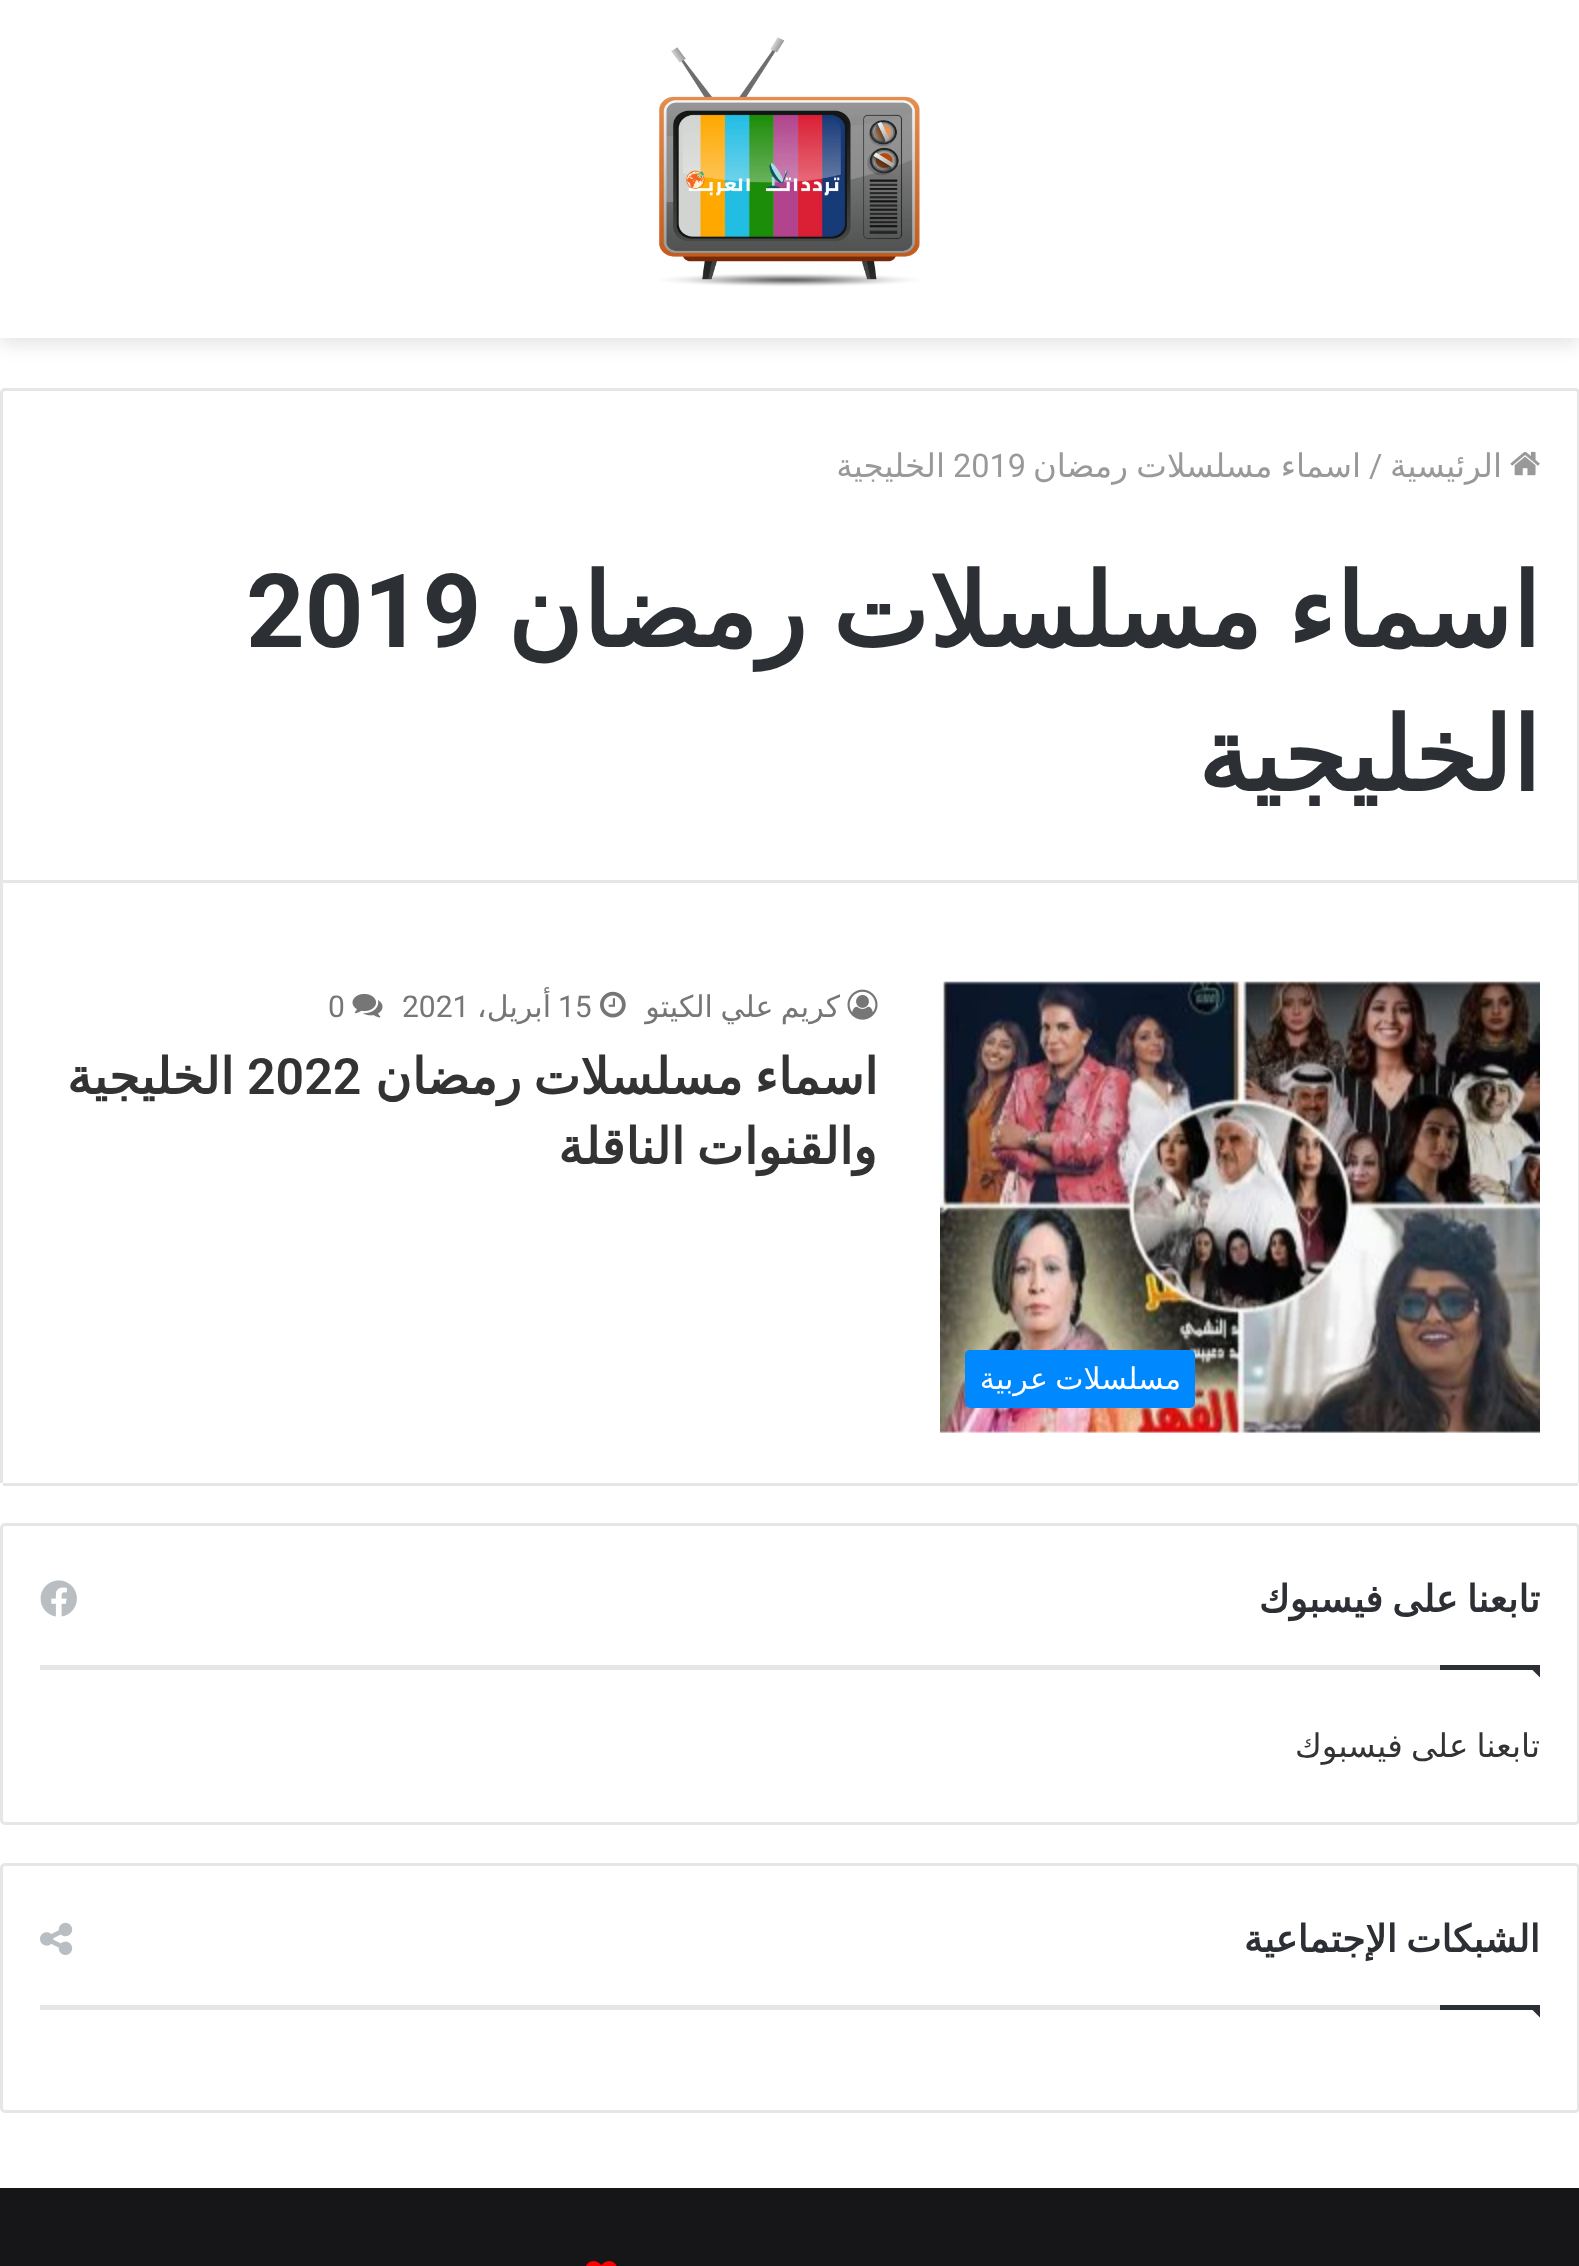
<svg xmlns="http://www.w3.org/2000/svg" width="1579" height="2266">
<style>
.a{font:32.5px DejaVu Sans;direction:rtl;fill:#999}
.b{font:32.5px Roboto;fill:#999}
.c{font:bold 102.5px DejaVu Sans;direction:rtl;fill:#2c2f34}
.d{font:bold 102.5px Roboto;fill:#2c2f34}
.e{font:30px DejaVu Sans;direction:rtl;fill:#767676}
.f{font:30px Roboto;fill:#767676}
.g{font:bold 50px DejaVu Sans;direction:rtl;fill:#333}
.h{font:600 50px Roboto;fill:#333}
.i{font:30px DejaVu Sans;direction:rtl;fill:#fff}
.j{font:bold 37.5px DejaVu Sans;direction:rtl;fill:#2c2f34}
.k{font:32.5px DejaVu Sans;direction:rtl;fill:#333}
</style>
<rect width="100%" height="100%" fill="#fff"/>
<path fill="#0000001a" filter="blur(9px)" d="M0 8h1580v337H0z"/>
<path fill="#fff" d="M0 0h1579v338H0z"/>
<image href="1.png" x="659" y="37" width="261" height="250"/>
<path fill="none" stroke="#e6e6e6" stroke-width="3" d="M5 389.5h1570c2 0 3.5 1.5 3.5 3.5v488.5h-1577v-488.5c0-2 1.5-3.5 3.5-3.5z"/>
<image href="2.png" x="1510" y="451" width="30" height="25"/>
<path fill="#e6e6e6" d="M1578 883h1v600H1578z"/>
<path fill="#e6e6e6" d="M3 1483h1575v3H3z"/>
<path fill="#e6e6e6" d="M0 883h3v600H0z"/>
<image href="3.png" x="847" y="989" width="31" height="31"/>
<image href="4.png" x="600" y="991" width="26" height="27"/>
<image href="5.png" x="352" y="993" width="31" height="25"/>
<image href="6.png" x="940" y="981" width="600" height="452"/>
<rect fill="#08f" x="965" y="1350" width="230" height="58" rx="5"/>
<rect fill="none" stroke="#e6e6e6" stroke-width="3" x="1.5" y="1524.5" width="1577" height="299" rx="3.5"/>
<path fill="#e6e6e6" d="M40 1665h1400v5H40z"/>
<image href="7.png" x="40" y="1580" width="37" height="37"/>
<path fill="#2c2f34" d="M1527.5 1665h12.5v12.5z"/>
<path fill="#2c2f34" d="M1440 1665h100v5H1440z"/>
<rect fill="none" stroke="#e6e6e6" stroke-width="3" x="1.5" y="1864.5" width="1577" height="247" rx="3.5"/>
<path fill="#e6e6e6" d="M40 2005h1400v5H40z"/>
<image href="8.png" x="40" y="1922" width="33" height="33"/>
<path fill="#2c2f34" d="M1527.5 2005h12.5v12.5z"/>
<path fill="#2c2f34" d="M1440 2005h100v5H1440z"/>
<path fill="#161619" d="M0 2188h1579v78H0z"/>
<image href="9.png" x="586" y="2261" width="31" height="5"/>
<text class="a" x="1502" y="477">الرئيسية</text>
<text class="b" x="1369" y="477">/</text>
<text class="a" x="1361" y="477" word-spacing="-2">اسماء مسلسلات رمضان</text>
<text class="b" x="953" y="477">2019</text>
<text class="a" x="945" y="477">الخليجية</text>
<text class="c" x="1540" y="647" word-spacing="-7">اسماء مسلسلات رمضان</text>
<text class="d" x="246" y="647">2019</text>
<text class="c" x="1540" y="791">الخليجية</text>
<text class="e" x="840" y="1017" word-spacing="-2">كريم علي الكيتو</text>
<text class="f" x="558" y="1017">15</text>
<text class="e" x="551" y="1017">أبريل،</text>
<text class="f" x="402" y="1017">2021</text>
<text class="f" x="328" y="1017">0</text>
<text class="g" x="878" y="1094" word-spacing="-4">اسماء مسلسلات رمضان</text>
<text class="h" x="247" y="1094">2022</text>
<text class="g" x="234" y="1094">الخليجية</text>
<text class="g" x="877" y="1164" word-spacing="-4">والقنوات الناقلة</text>
<text class="i" x="1181" y="1389" word-spacing="-2">مسلسلات عربية</text>
<text class="j" x="1540" y="1612" word-spacing="-3">تابعنا على فيسبوك</text>
<text class="k" x="1540" y="1757" word-spacing="-2">تابعنا على فيسبوك</text>
<text class="j" x="1540" y="1952" word-spacing="-3">الشبكات الإجتماعية</text>
</svg>
